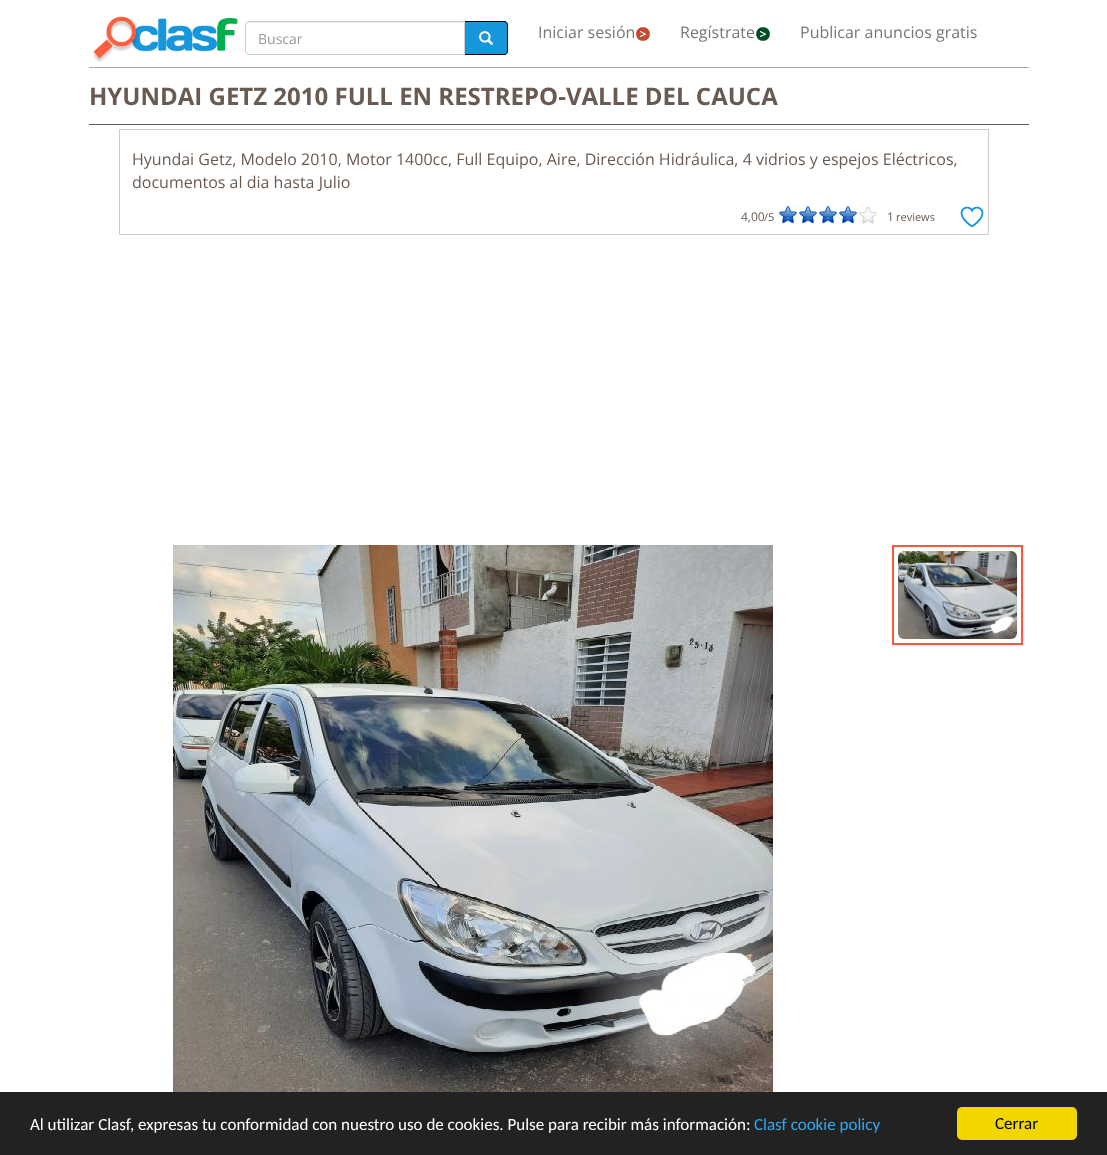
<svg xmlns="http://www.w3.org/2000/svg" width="1107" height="1155">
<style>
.a{font:14px Open Sans;fill:#999}
.b{font:16px Open Sans;fill:#777}
.c{font:bold 24px Open Sans;fill:#695b52}
.d{font:16px Open Sans;fill:#695b52}
.e{font:12px Open Sans;fill:#695b52}
.f{font:11px Open Sans;fill:#695b52}
.g{font:17px Carlito;fill:#fff}
.h{font:17px Carlito;fill:#31a8f0}
.i{font:17px Carlito;fill:#000}
</style>
<rect width="100%" height="100%" fill="#fff"/>
<image href="1.png" x="93" y="16" width="145" height="46"/>
<path fill="#ececec" d="M249 23h215v-1h-215c-2 0-3 1-3 3v1c0-2 1-3 3-3z"/>
<path fill="none" stroke="#ccc" d="M249 21.5h215.5v33h-215.5c-2 0-3.5-1.5-3.5-3.5v-26c0-2 1.5-3.5 3.5-3.5z"/>
<path fill="#1696db" d="M465 21h39c2 0 4 2 4 4v26c0 2-2 4-4 4h-39z"/>
<path fill="#000" fill-rule="evenodd" d="M465 21h39c2 0 4 2 4 4v26c0 2-2 4-4 4h-39zm0 1h39c2 0 3 1 3 3v26c0 2-1 3-3 3h-39z"/>
<image href="2.png" x="479" y="31" width="15" height="14"/>
<image href="3.png" x="636" y="27" width="14" height="14"/>
<image href="4.png" x="756" y="27" width="14" height="14"/>
<path fill="#aaa" d="M89 67h940v1H89z"/>
<path fill="#695b52" d="M89 124h940v1H89z"/>
<path fill="none" stroke="#ccc" d="M119.5 129.5h869v105H119.5z"/>
<image href="5.png" x="780" y="206" width="97" height="18"/>
<image href="6.png" x="779" y="206" width="78" height="17"/>
<image href="7.png" x="960" y="206" width="24" height="22"/>
<image href="8.png" x="173" y="545" width="600" height="547"/>
<path fill="none" stroke="#ff5541" stroke-width="2" d="M893 546h129v98H893z"/>
<image href="9.png" x="898" y="551" width="119" height="88"/>
<path fill="#222" d="M0 1092h1107v63H0z"/>
<rect fill="#f1d600" x="957" y="1107" width="120" height="33" rx="5"/>
<text class="a" x="258" y="44">Buscar</text>
<text class="b" x="538" y="38">Iniciar sesión</text>
<text class="b" x="680" y="38">Regístrate</text>
<text class="b" x="800" y="38">Publicar anuncios gratis</text>
<text class="c" x="89" y="105">HYUNDAI GETZ 2010 FULL EN RESTREPO-VALLE DEL CAUCA</text>
<text class="d" x="132" y="165">Hyundai Getz, Modelo 2010, Motor 1400cc, Full Equipo, Aire, Dirección Hidráulica, 4 vidrios y espejos Eléctricos,</text>
<text class="d" x="132" y="188">documentos al dia hasta Julio</text>
<text class="e" x="741" y="221">4,00</text>
<text class="f" x="764" y="221">/5</text>
<text class="e" x="887" y="221">1</text>
<text class="f" x="896" y="221">reviews</text>
<text class="g" x="30" y="1130">Al utilizar Clasf, expresas tu conformidad con nuestro uso de cookies. Pulse para recibir más información:</text>
<text class="h" x="754" y="1130">Clasf cookie policy</text>
<text class="i" x="995" y="1129">Cerrar</text>
</svg>
